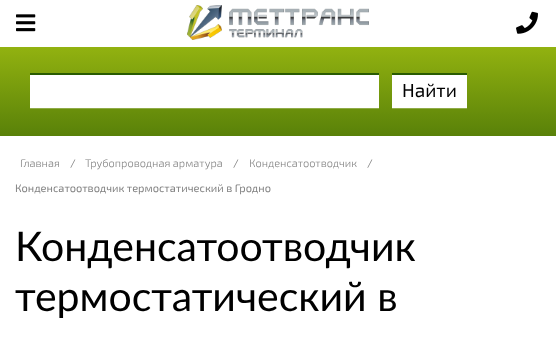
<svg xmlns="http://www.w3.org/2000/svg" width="556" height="343">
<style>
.a{font:19px 'Exo 2';fill:#000}
.b{font:300 11px 'Exo 2';fill:#818181}
.c{font:11px 'Exo 2';fill:#818181}
.d{font:41px Lato;fill:#000}
</style>
<defs>
<linearGradient id="g1" gradientUnits="userSpaceOnUse" x1="278" y1="47" x2="278" y2="136"><stop offset="0" stop-color="#92b210"/><stop offset="1" stop-color="#598109"/></linearGradient>
</defs>
<rect width="100%" height="100%" fill="#fff"/>
<image href="1.png" x="16" y="14" width="20" height="18"/>
<image href="2.png" x="187" y="5" width="182" height="35"/>
<image href="3.png" x="516" y="11" width="22" height="23"/>
<path fill="url(#g1)" d="M0 47h556v89H0z"/>
<path fill="#fff" d="M30 75h349v33H30z"/>
<path fill="#295b01" d="M30 73h349v2H30z"/>
<path fill="#8fab48" d="M30 108h349v1H30z"/>
<path fill="#fff" d="M392 75h75v33H392z"/>
<path fill="#295b01" d="M392 73h75v2H392z"/>
<path fill="#8fab48" d="M392 108h75v1H392z"/>
<text class="a" x="402" y="97">Найти</text>
<text class="b" x="20" y="167">Главная</text>
<text class="c" x="70" y="167">/</text>
<text class="b" x="85" y="167">Трубопроводная арматура</text>
<text class="c" x="233" y="167">/</text>
<text class="b" x="249" y="167">Конденсатоотводчик</text>
<text class="c" x="367" y="167">/</text>
<text class="c" x="15" y="192">Конденсатоотводчик термостатический в Гродно</text>
<text class="d" x="15" y="261">Конденсатоотводчик</text>
<text class="d" x="15" y="311">термостатический в</text>
</svg>
